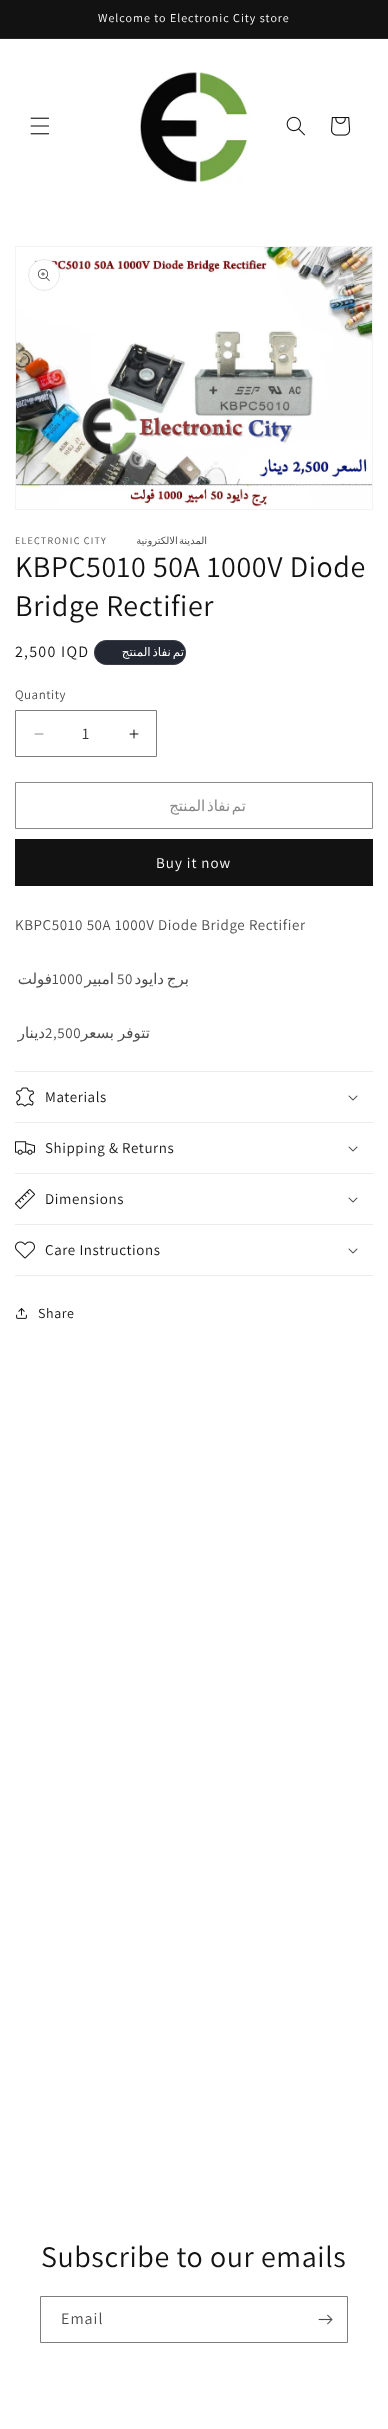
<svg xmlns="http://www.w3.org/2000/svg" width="388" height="2429">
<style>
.a{font:12px Assistant;letter-spacing:1px;fill:#fff}
.b{font:10px Assistant;letter-spacing:1.25px;fill:#4d4d4d}
.c{font:10px DejaVu Sans;letter-spacing:1.25px;direction:rtl;fill:#4d4d4d}
.d{font:30px Assistant;letter-spacing:0.6px;fill:#121212}
.e{font:16px Assistant;letter-spacing:1.25px;fill:#121212}
.f{font:12px DejaVu Sans;letter-spacing:1px;direction:rtl;fill:#fff}
.g{font:13px Assistant;letter-spacing:0.5px;fill:#4d4d4d}
.h{font:16px Assistant;fill:#363636}
.i{font:15px DejaVu Sans;letter-spacing:1px;direction:rtl;fill:#898989}
.j{font:15px Assistant;letter-spacing:1px;fill:#fff}
.k{font:15px Assistant;letter-spacing:0.6px;fill:#4d4d4d}
.l{font:15px DejaVu Sans;letter-spacing:0.6px;direction:rtl;fill:#4d4d4d}
.m{font:15px Assistant;letter-spacing:0.6px;fill:#121212}
.n{font:14px Assistant;letter-spacing:0.6px;fill:#121212}
.o{font:16px Assistant;letter-spacing:1px;fill:#4d4d4d}
</style>
<rect width="100%" height="100%" fill="#fff"/>
<path fill="#121212" d="M0 0h388v38H0z"/>
<path fill="#252525" d="M0 38h388v1H0z"/>
<image href="1.png" x="30" y="117" width="20" height="18"/>
<image href="2.png" x="140" y="72" width="110" height="111"/>
<image href="3.png" x="286" y="116" width="19" height="20"/>
<image href="4.png" x="331" y="117" width="20" height="19"/>
<path fill="none" stroke="#f3f3f3" d="M15.5 246.5h357v263H15.5z"/>
<image href="5.png" x="16" y="247" width="356" height="260"/>
<circle fill="#fff" cx="44" cy="275" r="16"/>
<circle fill="none" stroke="#1212121a" cx="44" cy="275" r="15.5"/>
<image href="6.png" x="38" y="269" width="12" height="12"/>
<rect fill="#242833" x="94" y="640" width="92" height="25" rx="12.5"/>
<rect fill="none" stroke="#ffffff1a" x="94.5" y="640.5" width="91" height="24" rx="12"/>
<image href="7.png" x="34" y="733" width="10" height="2"/>
<image href="8.png" x="129" y="729" width="10" height="10"/>
<path fill="none" stroke="#7d7d7d" d="M15.5 710.5h141v46H15.5z"/>
<path fill="none" stroke="#898989" d="M15.5 782.5h357v46H15.5z"/>
<path fill="#121212" d="M15 839h358v47H15z"/>
<path fill="#ececec" d="M15 1071h358v1H15z"/>
<path fill="#ececec" d="M15 1122h358v1H15z"/>
<image href="9.png" x="16" y="1087" width="18" height="20"/>
<image href="10.png" x="348" y="1095" width="10" height="6"/>
<path fill="#ececec" d="M15 1173h358v1H15z"/>
<image href="11.png" x="15" y="1141" width="20" height="14"/>
<image href="10.png" x="348" y="1146" width="10" height="6"/>
<path fill="#ececec" d="M15 1224h358v1H15z"/>
<image href="12.png" x="15" y="1189" width="20" height="20"/>
<image href="10.png" x="348" y="1197" width="10" height="6"/>
<path fill="#ececec" d="M15 1275h358v1H15z"/>
<image href="13.png" x="15" y="1241" width="20" height="18"/>
<image href="10.png" x="348" y="1248" width="10" height="6"/>
<image href="14.png" x="16" y="1308" width="11" height="11"/>
<path fill="none" stroke="#7d7d7d" d="M40.5 2296.5h307v46H40.5z"/>
<image href="15.png" x="318" y="2314" width="15" height="11"/>
<text class="a" x="98" y="22">Welcome to Electronic City store</text>
<text class="b" x="15" y="544">ELECTRONIC CITY</text>
<text class="c" x="207" y="544" word-spacing="-2">المدينة الالكترونية</text>
<text class="d" x="15" y="577">KBPC5010 50A 1000V Diode</text>
<text class="d" x="15" y="616">Bridge Rectifier</text>
<text class="e" x="15" y="657">2,500 IQD</text>
<text class="f" x="184" y="656" word-spacing="-2">تم نفاذ المنتج</text>
<text class="g" x="15" y="699">Quantity</text>
<text class="h" x="82" y="739">1</text>
<text class="i" x="246" y="811" word-spacing="-3">تم نفاذ المنتج</text>
<text class="j" x="156" y="868">Buy it now</text>
<text class="k" x="15" y="930">KBPC5010 50A 1000V Diode Bridge Rectifier</text>
<text class="l" x="52" y="984">فولت</text>
<text class="k" x="52" y="984">1000</text>
<text class="l" x="114" y="984">امبير</text>
<text class="k" x="117" y="984">50</text>
<text class="l" x="164" y="984">دايود</text>
<text class="l" x="189" y="984">برج</text>
<text class="l" x="45" y="1038">دينار</text>
<text class="k" x="45" y="1038">2,500</text>
<text class="l" x="114" y="1038">بسعر</text>
<text class="l" x="150" y="1038">تتوفر</text>
<text class="m" x="45" y="1102">Materials</text>
<text class="m" x="45" y="1153">Shipping &amp; Returns</text>
<text class="m" x="45" y="1204">Dimensions</text>
<text class="m" x="45" y="1255">Care Instructions</text>
<text class="n" x="38" y="1318">Share</text>
<text class="d" x="41" y="2267">Subscribe to our emails</text>
<text class="o" x="61" y="2324">Email</text>
</svg>
